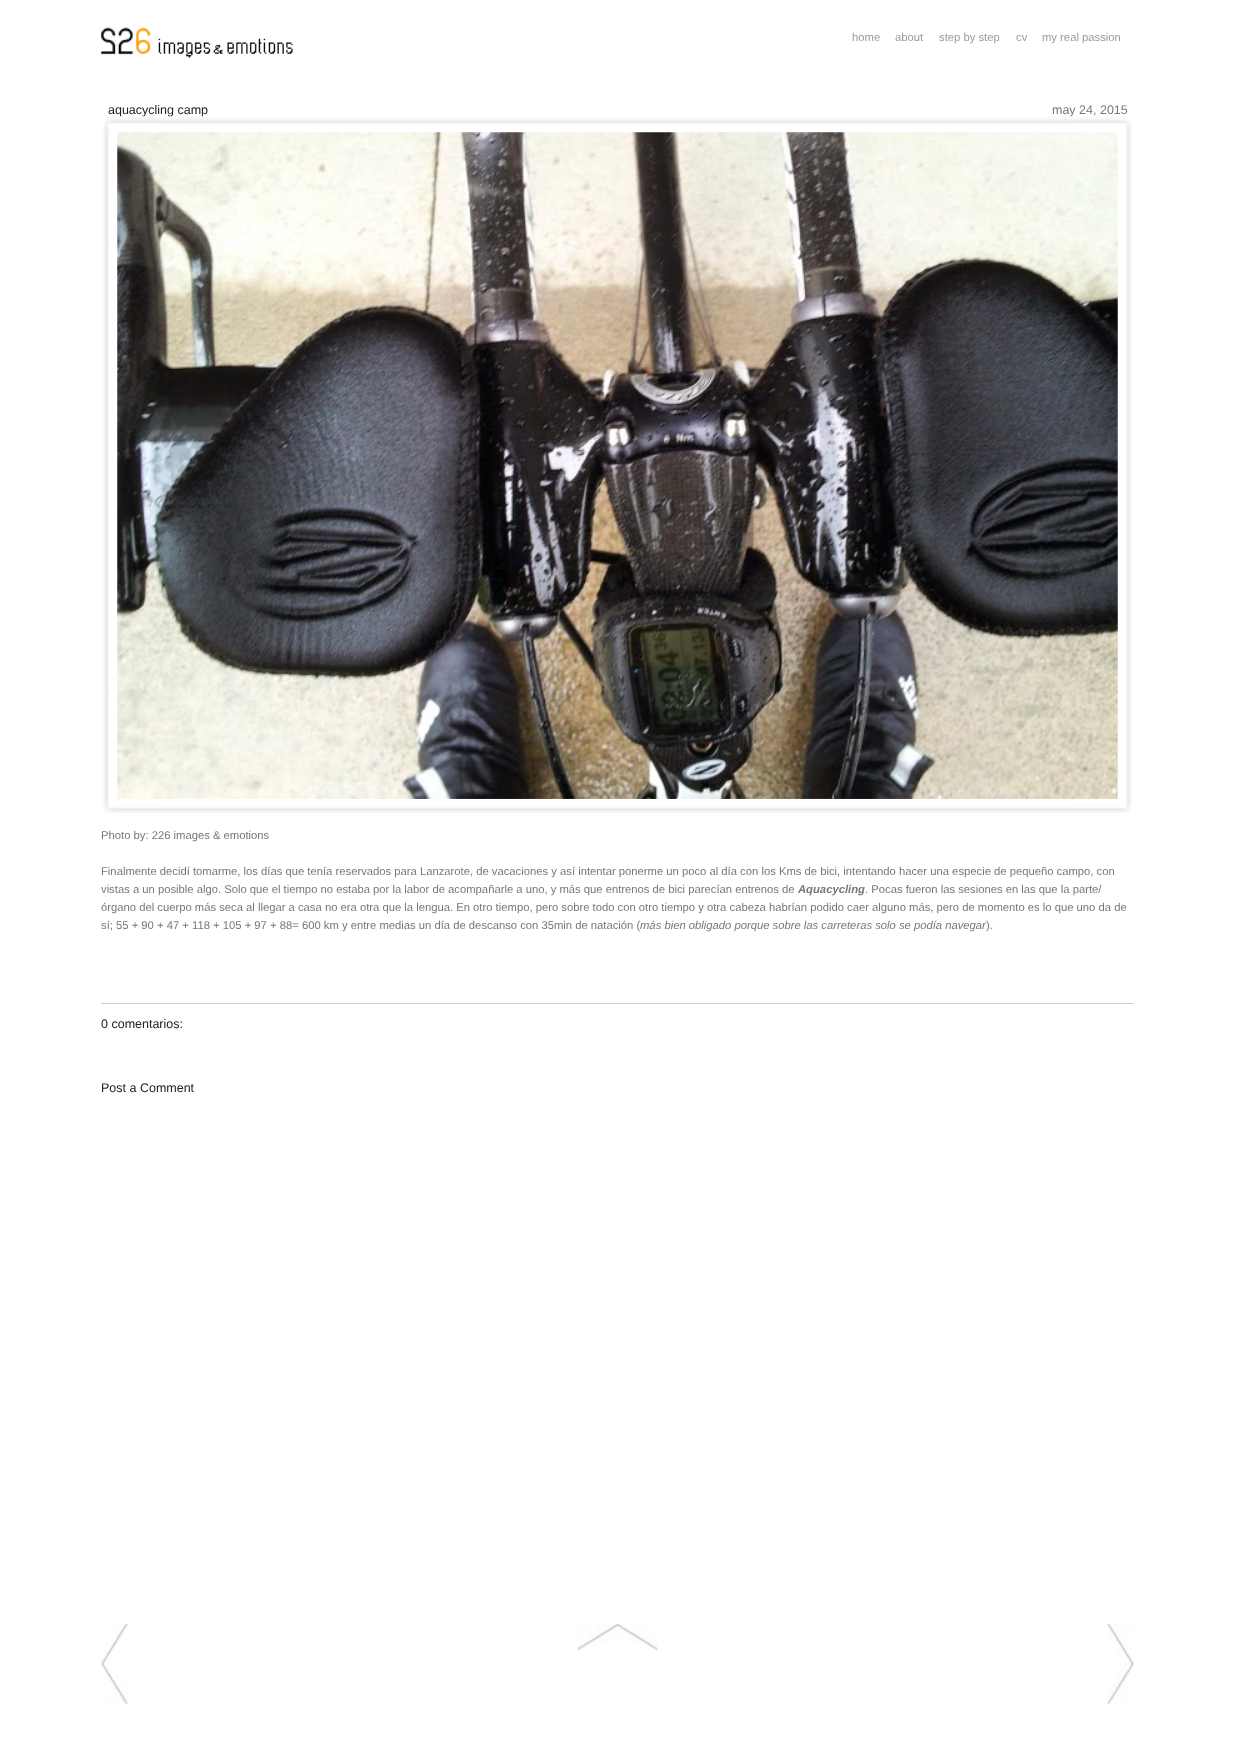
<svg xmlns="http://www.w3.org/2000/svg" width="1235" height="1747">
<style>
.a{font:11.25px Liberation Sans;fill:#999}
.b{font:12.5px Liberation Sans;fill:#222}
.c{font:12.5px Liberation Sans;fill:#777}
.d{font:11.25px Liberation Sans;fill:#777}
.e{font:italic bold 11.25px Liberation Sans;fill:#777}
.f{font:italic 11.25px Liberation Sans;fill:#777}
</style>
<rect width="100%" height="100%" fill="#fff"/>
<image href="1.png" x="101" y="27" width="192" height="31"/>
<path fill="#ccc" d="M101 1003h1033v1H101z"/>
<image href="4.png" x="101" y="1624" width="27" height="80"/>
<image href="5.png" x="577" y="1624" width="81" height="26"/>
<image href="6.png" x="1107" y="1624" width="27" height="80"/>
<text class="a" x="852" y="41">home</text>
<text class="a" x="895" y="41">about</text>
<text class="a" x="939" y="41">step by step</text>
<text class="a" x="1016" y="41">cv</text>
<text class="a" x="1042" y="41">my real passion</text>
<text class="b" x="108" y="114">aquacycling camp</text>
<text class="c" x="1052" y="114">may 24, 2015</text>
<image href="2.png" x="103" y="116" width="1029" height="697"/>
<image href="3.png" x="117" y="132" width="1001" height="667"/>
<text class="d" x="101" y="839">Photo by: 226 images &amp; emotions</text>
<text class="d" x="101" y="875">Finalmente decidí tomarme, los días que tenía reservados para Lanzarote, de vacaciones y así intentar ponerme un poco al día con los Kms de bici, intentando hacer una especie de pequeño campo, con</text>
<text class="d" x="101" y="893">vistas a un posible algo. Solo que el tiempo no estaba por la labor de acompañarle a uno, y más que entrenos de bici parecían entrenos de</text>
<text class="e" x="798" y="893">Aquacycling</text>
<text class="d" x="865" y="893">. Pocas fueron las sesiones en las que la parte/</text>
<text class="d" x="101" y="911">órgano del cuerpo más seca al llegar a casa no era otra que la lengua. En otro tiempo, pero sobre todo con otro tiempo y otra cabeza habrían podido caer alguno más, pero de momento es lo que uno da de</text>
<text class="d" x="101" y="929">sí; 55 + 90 + 47 + 118 + 105 + 97 + 88= 600 km y entre medias un día de descanso con 35min de natación (</text>
<text class="f" x="640" y="929">más bien obligado porque sobre las carreteras solo se podía navegar</text>
<text class="d" x="986" y="929">).</text>
<text class="b" x="101" y="1028">0 comentarios:</text>
<text class="b" x="101" y="1092">Post a Comment</text>
</svg>
